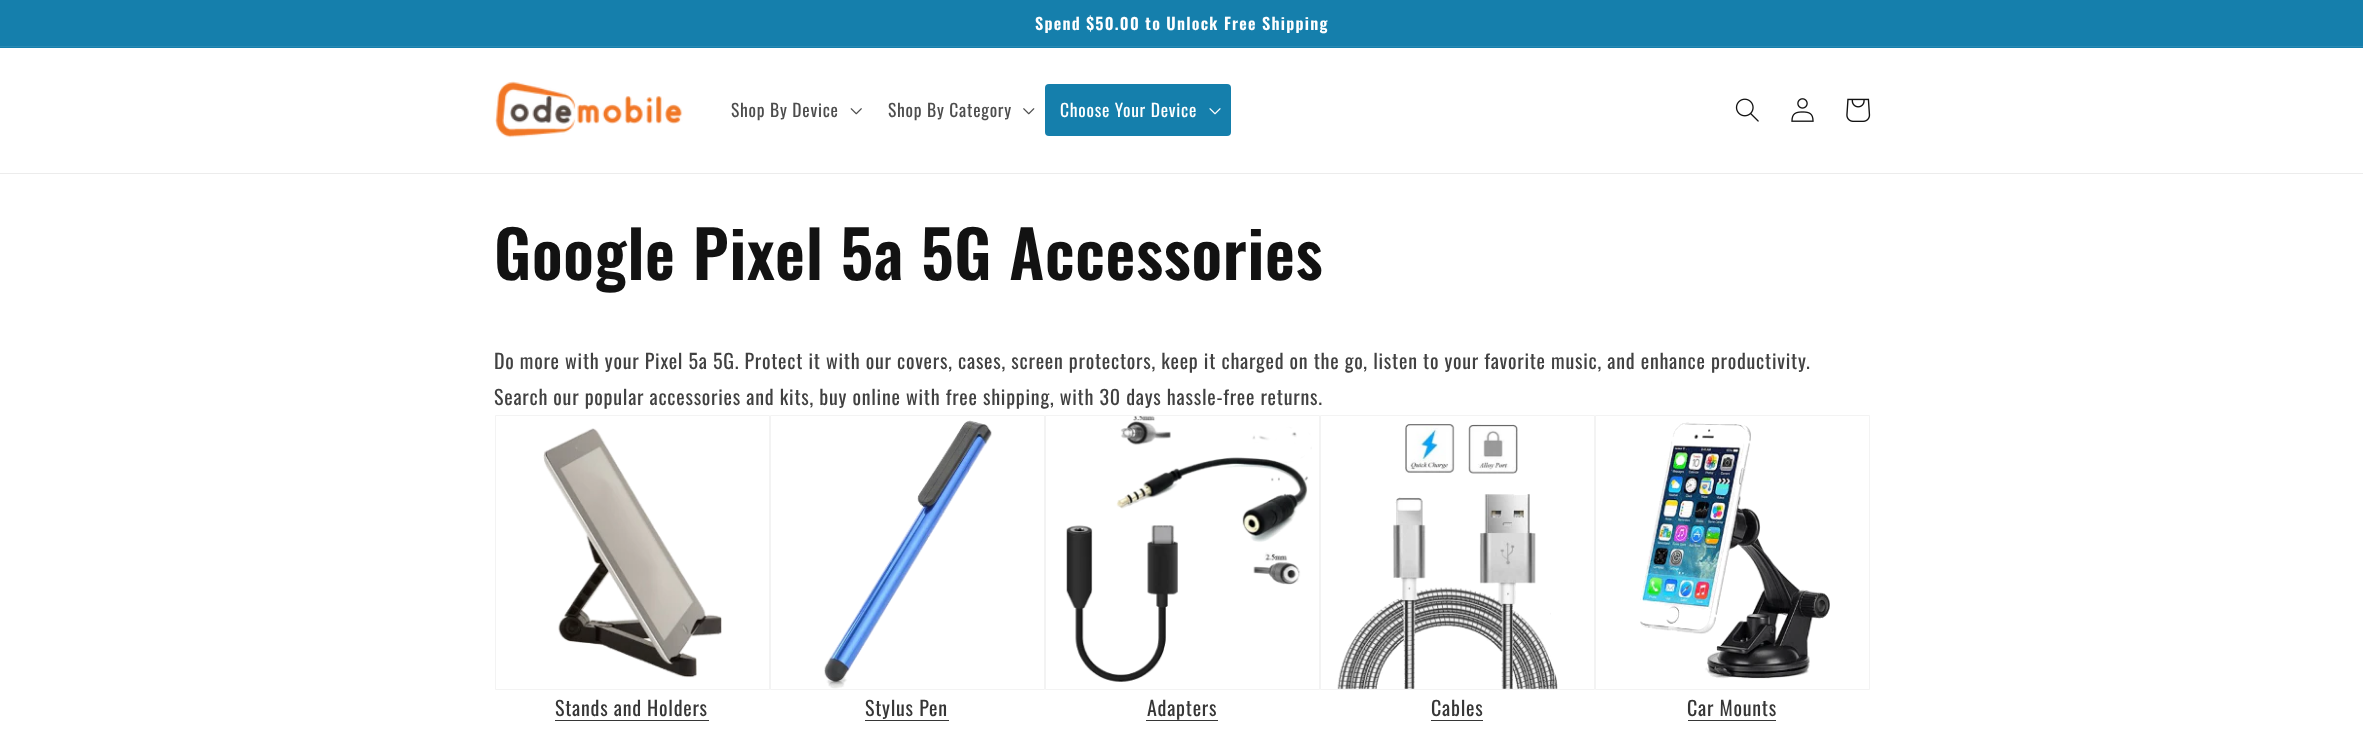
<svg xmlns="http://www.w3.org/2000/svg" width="2363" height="732">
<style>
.a{font:600 16.25px Oswald;letter-spacing:1.25px;fill:#fff}
.b{font:17.5px Oswald;letter-spacing:0.75px;fill:#4d4d4d}
.c{font:17.5px Oswald;letter-spacing:0.75px;fill:#fff}
.d{font:600 65px Oswald;letter-spacing:0.75px;fill:#121212}
.e{font:20px Oswald;letter-spacing:0.75px;fill:#414141}
.f{font:20px Oswald;letter-spacing:0.75px;fill:#363636}
</style>
<rect width="100%" height="100%" fill="#fff"/>
<path fill="#157fac" d="M0 0h2363v48H0z"/>
<path fill="#2889b3" d="M0 46h2363v1H0z"/>
<path fill="#ececec" d="M0 173h2363v1H0z"/>
<image href="1.png" x="495" y="81" width="188" height="57"/>
<image href="2.png" x="850" y="108" width="12" height="7"/>
<image href="3.png" x="1023" y="108" width="12" height="7"/>
<rect fill="#157fac" x="1045" y="84" width="186" height="52" rx="4"/>
<image href="4.png" x="1209" y="108" width="12" height="7"/>
<image href="5.png" x="1735" y="98" width="24" height="24"/>
<image href="6.png" x="1791" y="98" width="23" height="24"/>
<image href="7.png" x="1846" y="98" width="25" height="24"/>
<path fill="none" stroke="#f3f3f3" d="M495.5 415.5h274v274H495.5z"/>
<image href="8.png" x="543" y="428" width="179" height="250"/>
<path fill="#363636" d="M555 720h154v1H555z"/>
<path fill="none" stroke="#f3f3f3" d="M770.5 415.5h274v274H770.5z"/>
<image href="9.png" x="824" y="420" width="168" height="269"/>
<path fill="#363636" d="M865 720h84v1H865z"/>
<path fill="none" stroke="#f3f3f3" d="M1045.5 415.5h274v274H1045.5z"/>
<image href="10.png" x="1066" y="416" width="246" height="266"/>
<path fill="#363636" d="M1146 720h72v1H1146z"/>
<path fill="none" stroke="#f3f3f3" d="M1320.5 415.5h274v274H1320.5z"/>
<image href="11.png" x="1337" y="424" width="221" height="265"/>
<path fill="#363636" d="M1431 720h52v1H1431z"/>
<path fill="none" stroke="#f3f3f3" d="M1595.5 415.5h274v274H1595.5z"/>
<image href="12.png" x="1640" y="422" width="190" height="257"/>
<path fill="#363636" d="M1688 720h88v1H1688z"/>
<text class="a" x="1035" y="30">Spend $50.00 to Unlock Free Shipping</text>
<text class="b" x="731" y="117">Shop By Device</text>
<text class="b" x="888" y="117">Shop By Category</text>
<text class="c" x="1060" y="117">Choose Your Device</text>
<text class="d" x="494" y="280">Google Pixel 5a 5G Accessories</text>
<text class="e" x="494" y="369">Do more with your Pixel 5a 5G. Protect it with our covers, cases, screen protectors, keep it charged on the go, listen to your favorite music, and enhance productivity.</text>
<text class="e" x="494" y="405">Search our popular accessories and kits, buy online with free shipping, with 30 days hassle-free returns.</text>
<text class="f" x="555" y="716">Stands and Holders</text>
<text class="f" x="865" y="716">Stylus Pen</text>
<text class="f" x="1147" y="716">Adapters</text>
<text class="f" x="1431" y="716">Cables</text>
<text class="f" x="1687" y="716">Car Mounts</text>
</svg>
